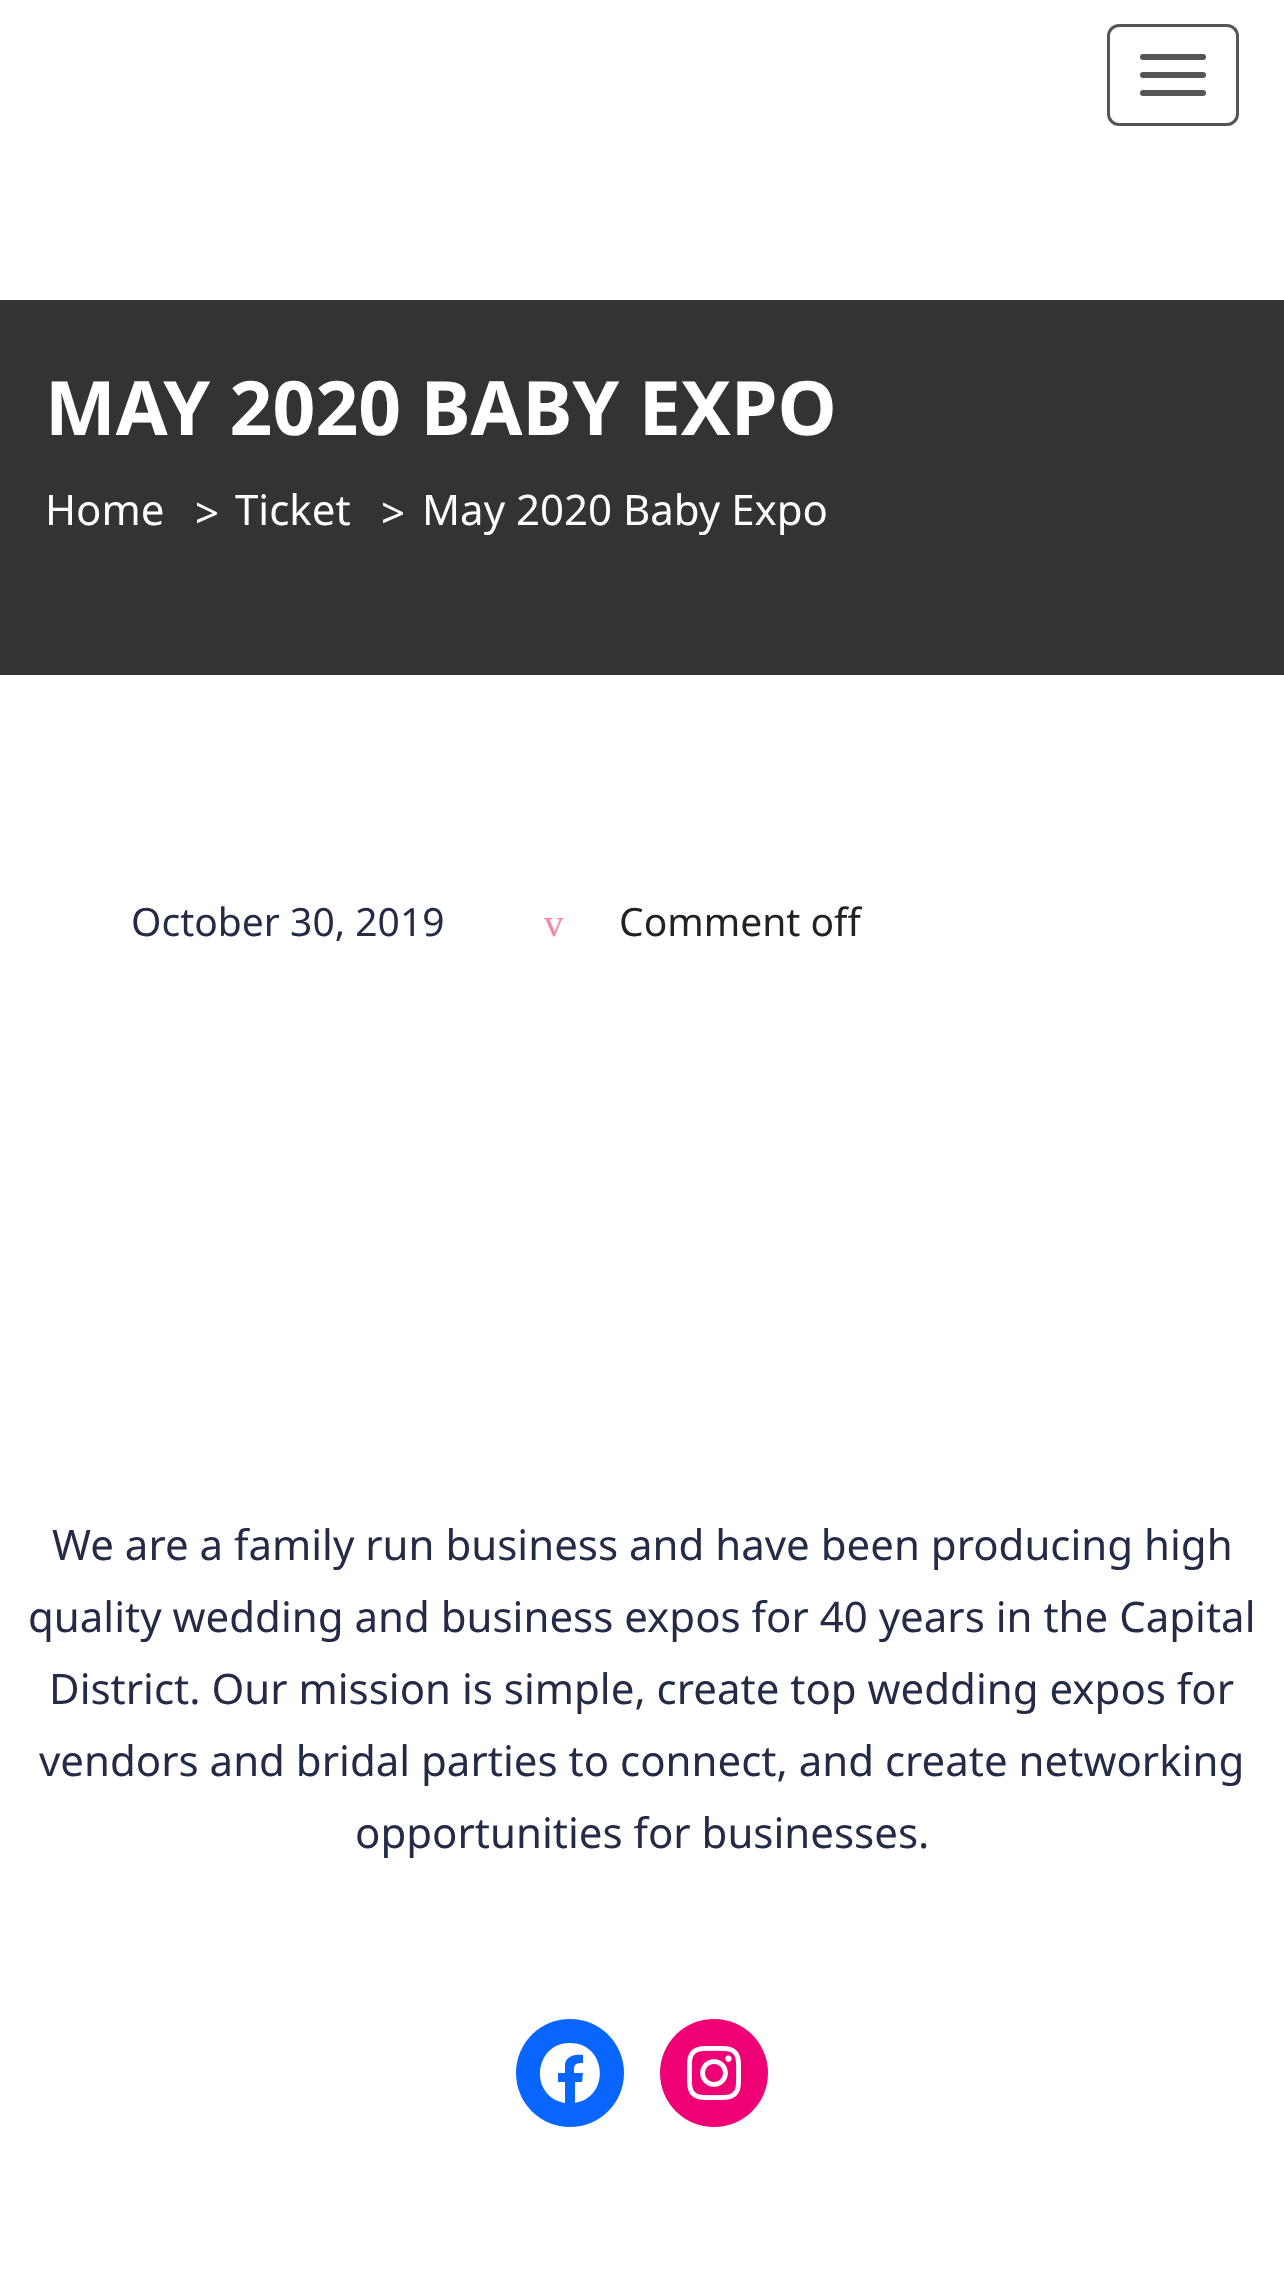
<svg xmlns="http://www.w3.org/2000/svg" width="1284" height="2290">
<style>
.a{font:bold 75px Noto Sans;fill:#fff}
.b{font:42px Noto Sans;fill:#fff}
.c{font:39px Noto Sans;fill:#242b46}
.d{font:39px Liberation Serif;fill:#f486ab}
.e{font:39px Noto Sans;fill:#222}
.f{font:42px Noto Sans;fill:#242b46}
</style>
<rect width="100%" height="100%" fill="#fff"/>
<rect fill="none" stroke="#555" stroke-width="3" x="1108.5" y="25.5" width="129" height="99" rx="10.5"/>
<rect fill="#555" x="1140" y="54" width="66" height="6" rx="3"/>
<rect fill="#555" x="1140" y="72" width="66" height="6" rx="3"/>
<rect fill="#555" x="1140" y="90" width="66" height="6" rx="3"/>
<path fill="#333" d="M0 300h1284v375H0z"/>
<circle fill="#0866ff" cx="570" cy="2073" r="54"/>
<path fill="#fff" d="M570 2043c-37 0-41 54-5 60v-21h-7v-9h7v-9c2-9 11-10 18-9v8c-9 0-9 2-9 10h9l-1 9h-7v21c36-6 32-60-5-60z"/>
<circle fill="#f00075" cx="714" cy="2073" r="54"/>
<image href="1.png" x="687" y="2046" width="54" height="54"/>
<text class="a" x="45" y="435">MAY 2020 BABY EXPO</text>
<text class="b" x="45" y="525">Home</text>
<text class="b" x="195" y="528">&gt;</text>
<text class="b" x="235" y="525">Ticket</text>
<text class="b" x="381" y="528">&gt;</text>
<text class="b" x="422" y="525">May 2020 Baby Expo</text>
<text class="c" x="131" y="936">October 30, 2019</text>
<text class="d" x="544" y="936">v</text>
<text class="e" x="619" y="936">Comment off</text>
<text class="f" x="52" y="1560">We are a family run business and have been producing high</text>
<text class="f" x="28" y="1632">quality wedding and business expos for 40 years in the Capital</text>
<text class="f" x="49" y="1704">District. Our mission is simple, create top wedding expos for</text>
<text class="f" x="39" y="1776">vendors and bridal parties to connect, and create networking</text>
<text class="f" x="355" y="1848">opportunities for businesses.</text>
</svg>
